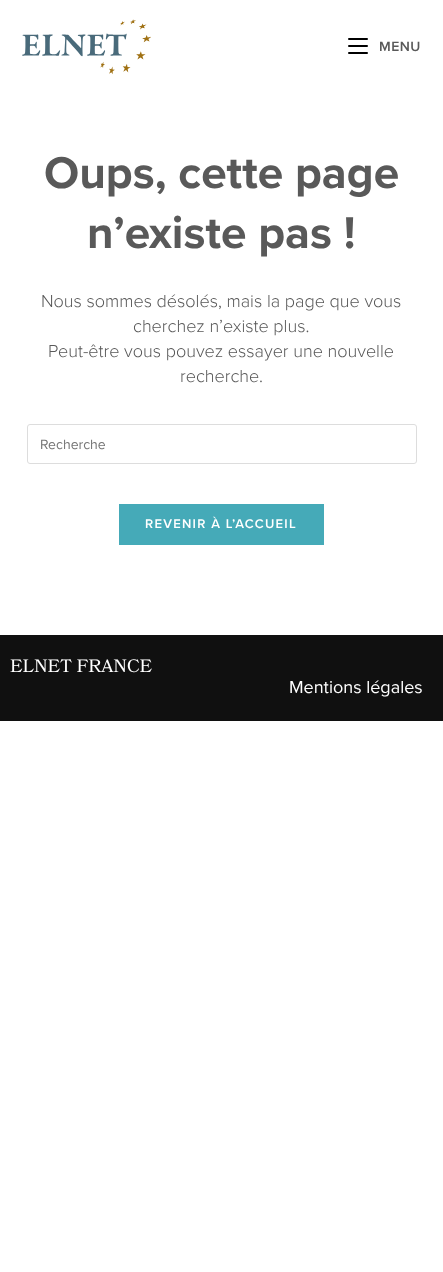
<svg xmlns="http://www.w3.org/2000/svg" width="443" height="1272">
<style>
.a{font:600 14px Proxima Nova;letter-spacing:0.5px;fill:#595959}
.b{font:bold 46px Proxima Nova;fill:#595959}
.c{font:300 18px Proxima Nova;fill:#595959}
.d{font:14px Proxima Nova;fill:#757575}
.e{font:600 13px Proxima Nova;letter-spacing:1.25px;fill:#fff}
.f{font:18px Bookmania;fill:#fff}
.g{font:18px Proxima Nova;fill:#fff}
</style>
<rect width="100%" height="100%" fill="#fff"/>
<image href="1.png" x="22" y="19" width="129" height="56"/>
<rect fill="#000" x="348" y="38" width="20" height="2" rx="1"/>
<rect fill="#000" x="348" y="45" width="20" height="2" rx="1"/>
<rect fill="#000" x="348" y="52" width="20" height="2" rx="1"/>
<rect fill="none" stroke="#ddd" x="27.5" y="424.5" width="389" height="39" rx="2.5"/>
<path fill="#45aab8" d="M119 504h205v41H119z"/>
<path fill="#101010" d="M0 635h443v86H0z"/>
<text class="a" x="379" y="51">MENU</text>
<text class="b" x="44" y="188">Oups, cette page</text>
<text class="b" x="87" y="248">n’existe pas !</text>
<text class="c" x="41" y="307">Nous sommes désolés, mais la page que vous</text>
<text class="c" x="133" y="332">cherchez n’existe plus.</text>
<text class="c" x="48" y="357">Peut-être vous pouvez essayer une nouvelle</text>
<text class="c" x="180" y="382">recherche.</text>
<text class="d" x="40" y="449">Recherche</text>
<text class="e" x="145" y="528">REVENIR À L’ACCUEIL</text>
<text class="f" x="10" y="672">ELNET FRANCE</text>
<text class="g" x="289" y="693">Mentions légales</text>
</svg>
